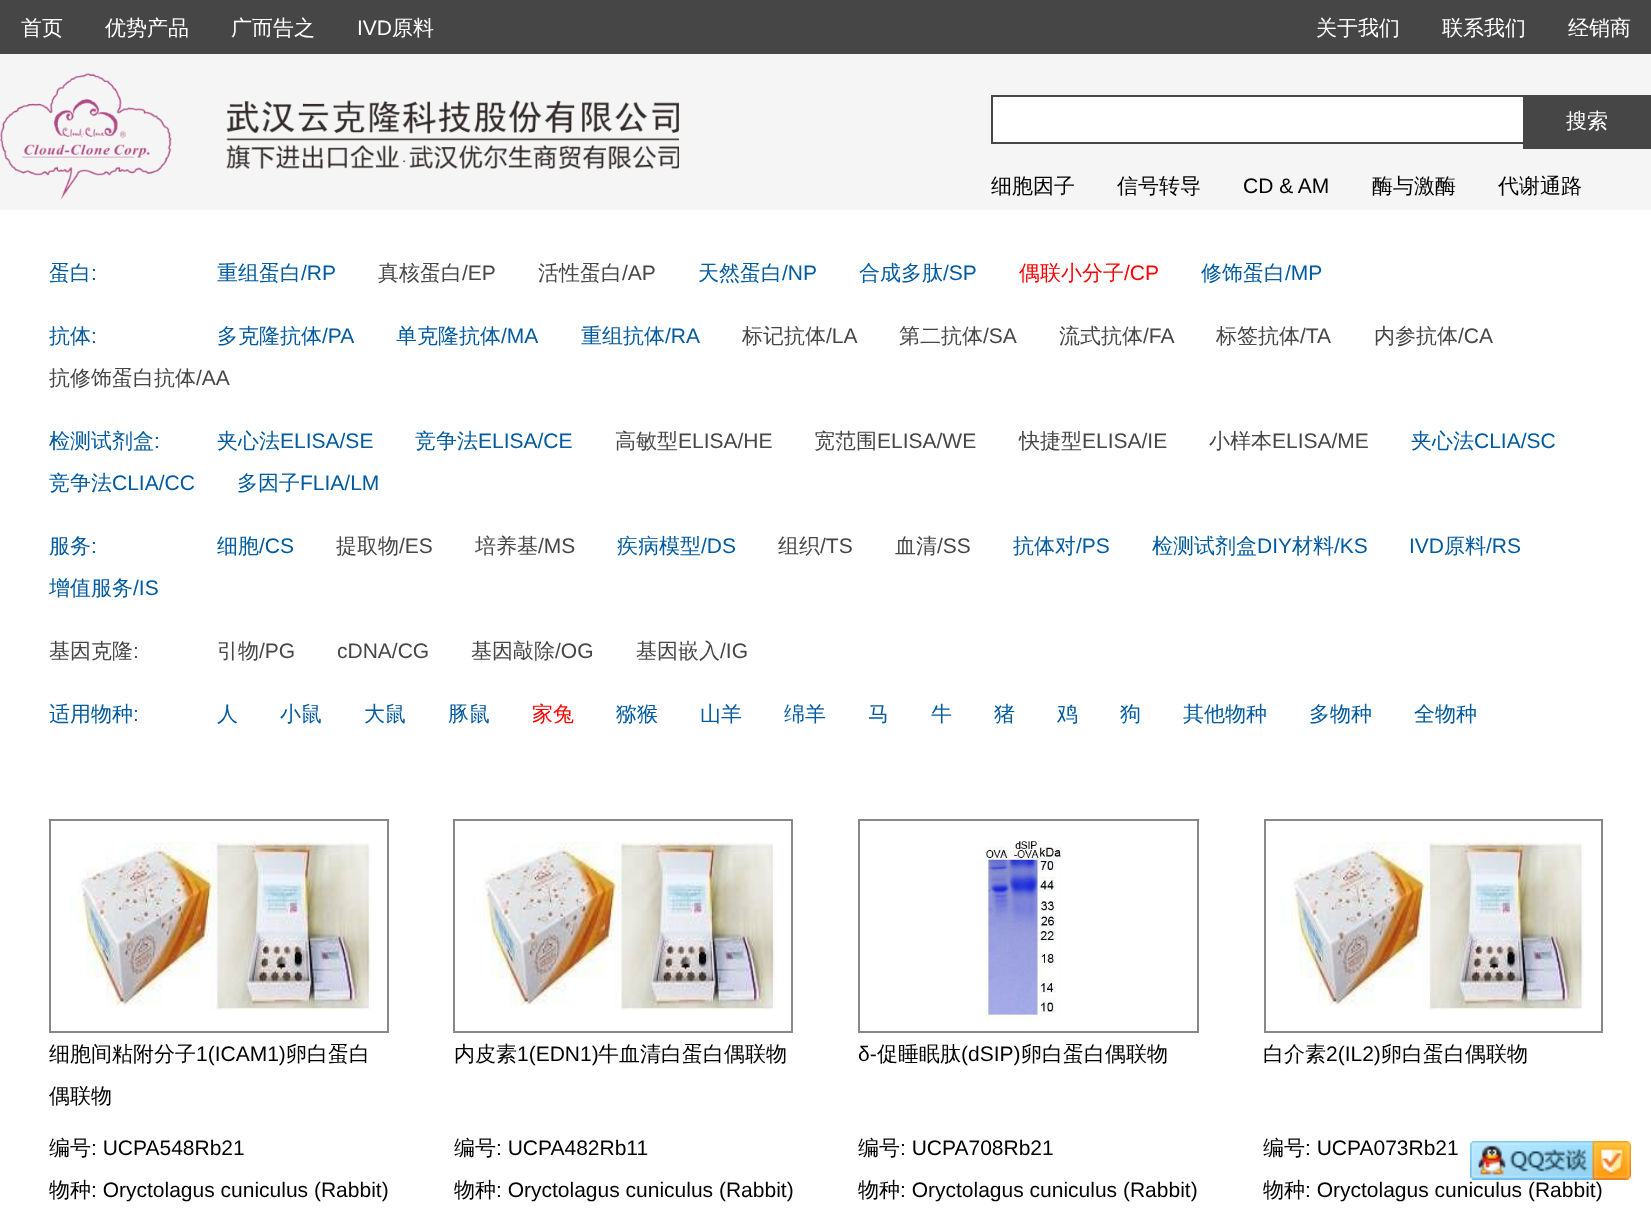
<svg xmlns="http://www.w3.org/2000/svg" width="1651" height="1213">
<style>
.a{font:500 21px WenQuanYi Zen Hei;fill:#fff}
.b{font:21px Liberation Sans;fill:#fff}
.c{font:500 21px WenQuanYi Zen Hei;fill:#000}
.d{font:21px Liberation Sans;fill:#000}
.e{font:500 21px WenQuanYi Zen Hei;fill:#005aa0}
.f{font:21px Liberation Sans;fill:#005aa0}
.g{font:500 21px WenQuanYi Zen Hei;fill:#464646}
.h{font:21px Liberation Sans;fill:#464646}
.i{font:500 21px WenQuanYi Zen Hei;fill:#f00}
.j{font:21px Liberation Sans;fill:#f00}
</style>
<rect width="100%" height="100%" fill="#fff"/>
<path fill="#f5f5f5" d="M0 54h1651v156H0z"/>
<path fill="#464646" d="M0 0h1651v54H0z"/>
<image href="1.png" x="0" y="73" width="679" height="127"/>
<path fill="#fff" d="M993 97h530v45H993z"/>
<path fill="none" stroke="#464646" stroke-width="2" d="M992 96h656v47H992z"/>
<path fill="#464646" d="M1523 95h128v54H1523z"/>
<path fill="none" stroke="#888" stroke-width="2" d="M50 820h338v212H50z"/>
<image href="2.png" x="69" y="841" width="302" height="169"/>
<path fill="none" stroke="#888" stroke-width="2" d="M454 820h338v212H454z"/>
<image href="3.png" x="473" y="841" width="302" height="169"/>
<path fill="none" stroke="#888" stroke-width="2" d="M859 820h339v212H859z"/>
<image href="4.png" x="985" y="841" width="76" height="179"/>
<path fill="none" stroke="#888" stroke-width="2" d="M1265 820h337v212H1265z"/>
<image href="5.png" x="1281" y="841" width="303" height="169"/>
<image href="6.png" x="1470" y="1141" width="161" height="39"/>
<text class="a" x="21" y="35">首页</text>
<text class="a" x="105" y="35">优势产品</text>
<text class="a" x="231" y="35">广而告之</text>
<text class="b" x="357" y="35">IVD</text>
<text class="a" x="392" y="35">原料</text>
<text class="a" x="1316" y="35">关于我们</text>
<text class="a" x="1442" y="35">联系我们</text>
<text class="a" x="1568" y="35">经销商</text>
<text class="a" x="1566" y="128">搜索</text>
<text class="c" x="991" y="193">细胞因子</text>
<text class="c" x="1117" y="193">信号转导</text>
<text class="d" x="1243" y="193">CD &amp; AM</text>
<text class="c" x="1372" y="193">酶与激酶</text>
<text class="c" x="1498" y="193">代谢通路</text>
<text class="e" x="49" y="280">蛋白</text>
<text class="f" x="91" y="280">:</text>
<text class="e" x="217" y="280">重组蛋白</text>
<text class="f" x="301" y="280">/RP</text>
<text class="g" x="378" y="280">真核蛋白</text>
<text class="h" x="462" y="280">/EP</text>
<text class="g" x="538" y="280">活性蛋白</text>
<text class="h" x="622" y="280">/AP</text>
<text class="e" x="698" y="280">天然蛋白</text>
<text class="f" x="782" y="280">/NP</text>
<text class="e" x="859" y="280">合成多肽</text>
<text class="f" x="943" y="280">/SP</text>
<text class="i" x="1019" y="280">偶联小分子</text>
<text class="j" x="1124" y="280">/CP</text>
<text class="e" x="1201" y="280">修饰蛋白</text>
<text class="f" x="1285" y="280">/MP</text>
<text class="e" x="49" y="343">抗体</text>
<text class="f" x="91" y="343">:</text>
<text class="e" x="217" y="343">多克隆抗体</text>
<text class="f" x="322" y="343">/PA</text>
<text class="e" x="396" y="343">单克隆抗体</text>
<text class="f" x="501" y="343">/MA</text>
<text class="e" x="581" y="343">重组抗体</text>
<text class="f" x="665" y="343">/RA</text>
<text class="g" x="742" y="343">标记抗体</text>
<text class="h" x="826" y="343">/LA</text>
<text class="g" x="899" y="343">第二抗体</text>
<text class="h" x="983" y="343">/SA</text>
<text class="g" x="1059" y="343">流式抗体</text>
<text class="h" x="1143" y="343">/FA</text>
<text class="g" x="1216" y="343">标签抗体</text>
<text class="h" x="1300" y="343">/TA</text>
<text class="g" x="1374" y="343">内参抗体</text>
<text class="h" x="1458" y="343">/CA</text>
<text class="g" x="49" y="385">抗修饰蛋白抗体</text>
<text class="h" x="196" y="385">/AA</text>
<text class="e" x="49" y="448">检测试剂盒</text>
<text class="f" x="154" y="448">:</text>
<text class="e" x="217" y="448">夹心法</text>
<text class="f" x="280" y="448">ELISA/SE</text>
<text class="e" x="415" y="448">竞争法</text>
<text class="f" x="478" y="448">ELISA/CE</text>
<text class="g" x="615" y="448">高敏型</text>
<text class="h" x="678" y="448">ELISA/HE</text>
<text class="g" x="814" y="448">宽范围</text>
<text class="h" x="877" y="448">ELISA/WE</text>
<text class="g" x="1019" y="448">快捷型</text>
<text class="h" x="1082" y="448">ELISA/IE</text>
<text class="g" x="1209" y="448">小样本</text>
<text class="h" x="1272" y="448">ELISA/ME</text>
<text class="e" x="1411" y="448">夹心法</text>
<text class="f" x="1474" y="448">CLIA/SC</text>
<text class="e" x="49" y="490">竞争法</text>
<text class="f" x="112" y="490">CLIA/CC</text>
<text class="e" x="237" y="490">多因子</text>
<text class="f" x="300" y="490">FLIA/LM</text>
<text class="e" x="49" y="553">服务</text>
<text class="f" x="91" y="553">:</text>
<text class="e" x="217" y="553">细胞</text>
<text class="f" x="259" y="553">/CS</text>
<text class="g" x="336" y="553">提取物</text>
<text class="h" x="399" y="553">/ES</text>
<text class="g" x="475" y="553">培养基</text>
<text class="h" x="538" y="553">/MS</text>
<text class="e" x="617" y="553">疾病模型</text>
<text class="f" x="701" y="553">/DS</text>
<text class="g" x="778" y="553">组织</text>
<text class="h" x="820" y="553">/TS</text>
<text class="g" x="895" y="553">血清</text>
<text class="h" x="937" y="553">/SS</text>
<text class="e" x="1013" y="553">抗体对</text>
<text class="f" x="1076" y="553">/PS</text>
<text class="e" x="1152" y="553">检测试剂盒</text>
<text class="f" x="1257" y="553">DIY</text>
<text class="e" x="1292" y="553">材料</text>
<text class="f" x="1334" y="553">/KS</text>
<text class="f" x="1409" y="553">IVD</text>
<text class="e" x="1444" y="553">原料</text>
<text class="f" x="1486" y="553">/RS</text>
<text class="e" x="49" y="595">增值服务</text>
<text class="f" x="133" y="595">/IS</text>
<text class="g" x="49" y="658">基因克隆</text>
<text class="h" x="133" y="658">:</text>
<text class="g" x="217" y="658">引物</text>
<text class="h" x="259" y="658">/PG</text>
<text class="h" x="337" y="658">cDNA/CG</text>
<text class="g" x="471" y="658">基因敲除</text>
<text class="h" x="555" y="658">/OG</text>
<text class="g" x="636" y="658">基因嵌入</text>
<text class="h" x="720" y="658">/IG</text>
<text class="e" x="49" y="721">适用物种</text>
<text class="f" x="133" y="721">:</text>
<text class="e" x="217" y="721">人</text>
<text class="e" x="280" y="721">小鼠</text>
<text class="e" x="364" y="721">大鼠</text>
<text class="e" x="448" y="721">豚鼠</text>
<text class="i" x="532" y="721">家兔</text>
<text class="e" x="616" y="721">猕猴</text>
<text class="e" x="700" y="721">山羊</text>
<text class="e" x="784" y="721">绵羊</text>
<text class="e" x="868" y="721">马</text>
<text class="e" x="931" y="721">牛</text>
<text class="e" x="994" y="721">猪</text>
<text class="e" x="1057" y="721">鸡</text>
<text class="e" x="1120" y="721">狗</text>
<text class="e" x="1183" y="721">其他物种</text>
<text class="e" x="1309" y="721">多物种</text>
<text class="e" x="1414" y="721">全物种</text>
<text class="c" x="49" y="1061">细胞间粘附分子</text>
<text class="d" x="196" y="1061">1(ICAM1)</text>
<text class="c" x="286" y="1061">卵白蛋白</text>
<text class="c" x="49" y="1103">偶联物</text>
<text class="c" x="49" y="1155">编号</text>
<text class="d" x="91" y="1155">: UCPA548Rb21</text>
<text class="c" x="49" y="1197">物种</text>
<text class="d" x="91" y="1197">: Oryctolagus cuniculus (Rabbit)</text>
<text class="c" x="454" y="1061">内皮素</text>
<text class="d" x="517" y="1061">1(EDN1)</text>
<text class="c" x="598" y="1061">牛血清白蛋白偶联物</text>
<text class="c" x="454" y="1155">编号</text>
<text class="d" x="496" y="1155">: UCPA482Rb11</text>
<text class="c" x="454" y="1197">物种</text>
<text class="d" x="496" y="1197">: Oryctolagus cuniculus (Rabbit)</text>
<text class="d" x="858" y="1061">δ-</text>
<text class="c" x="877" y="1061">促睡眠肽</text>
<text class="d" x="961" y="1061">(dSIP)</text>
<text class="c" x="1021" y="1061">卵白蛋白偶联物</text>
<text class="c" x="858" y="1155">编号</text>
<text class="d" x="900" y="1155">: UCPA708Rb21</text>
<text class="c" x="858" y="1197">物种</text>
<text class="d" x="900" y="1197">: Oryctolagus cuniculus (Rabbit)</text>
<text class="c" x="1263" y="1061">白介素</text>
<text class="d" x="1326" y="1061">2(IL2)</text>
<text class="c" x="1381" y="1061">卵白蛋白偶联物</text>
<text class="c" x="1263" y="1155">编号</text>
<text class="d" x="1305" y="1155">: UCPA073Rb21</text>
<text class="c" x="1263" y="1197">物种</text>
<text class="d" x="1305" y="1197">: Oryctolagus cuniculus (Rabbit)</text>
</svg>
